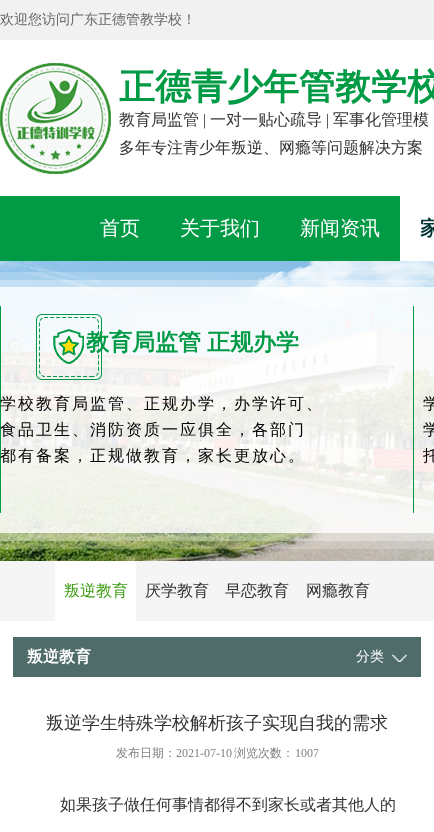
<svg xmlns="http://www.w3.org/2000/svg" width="434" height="832">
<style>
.a{font:500 14px WenQuanYi Zen Hei;fill:#666}
.b{font:bold 36px WenQuanYi Zen Hei;fill:#019a45}
.c{font:500 16px WenQuanYi Zen Hei;fill:#333}
.d{font:16px Liberation Serif;fill:#333}
.e{font:500 20px WenQuanYi Zen Hei;fill:#fff}
.f{font:bold 20px WenQuanYi Zen Hei;fill:#033333}
.g{font:bold 23px WenQuanYi Zen Hei;fill:#019a45}
.h{font:500 16px WenQuanYi Zen Hei;letter-spacing:2px;fill:#000}
.i{font:500 16px WenQuanYi Zen Hei;fill:#3d9e13}
.j{font:bold 16px WenQuanYi Zen Hei;fill:#fff}
.k{font:500 14px WenQuanYi Zen Hei;fill:#fff}
.l{font:500 18px WenQuanYi Zen Hei;fill:#333}
.m{font:500 12px WenQuanYi Zen Hei;fill:#808080}
.n{font:12px Liberation Serif;fill:#808080}
</style>
<rect width="100%" height="100%" fill="#fff"/>
<path fill="#f1f1f1" d="M0 0h434v40H0z"/>
<image href="1.png" x="0" y="63" width="111" height="111"/>
<path fill="#019a45" d="M0 196h400v65H0z"/>
<image href="2.png" x="0" y="261" width="434" height="300"/>
<path fill="#f5f5f5" d="M0 561h434v60H0z"/>
<path fill="#fff" d="M55 561h81v60H55z"/>
<path fill="#4f6c6b" d="M13 637h408v40H13z"/>
<image href="3.png" x="392" y="654" width="15" height="8"/>
<text class="a" x="0" y="24">欢迎您访问广东正德管教学校！</text>
<text class="b" x="119" y="99">正德青少年管教学校</text>
<text class="c" x="119" y="125">教育局监管</text>
<text class="d" x="203" y="125">|</text>
<text class="c" x="210" y="125">一对一贴心疏导</text>
<text class="d" x="326" y="125">|</text>
<text class="c" x="333" y="125">军事化管理模</text>
<text class="c" x="119" y="153">多年专注青少年叛逆、网瘾等问题解决方案</text>
<text class="e" x="100" y="235">首页</text>
<text class="e" x="180" y="235">关于我们</text>
<text class="e" x="300" y="235">新闻资讯</text>
<text class="f" x="420" y="235">家</text>
<text class="g" x="86" y="350" word-spacing="-1">教育局监管 正规办学</text>
<text class="h" x="0" y="409">学校教育局监管、正规办学，办学许可、</text>
<text class="h" x="0" y="435">食品卫生、消防资质一应俱全，各部门</text>
<text class="h" x="0" y="461">都有备案，正规做教育，家长更放心。</text>
<text class="h" x="423" y="409">学</text>
<text class="h" x="423" y="435">学</text>
<text class="h" x="423" y="461">托</text>
<text class="i" x="64" y="596">叛逆教育</text>
<text class="c" x="145" y="596">厌学教育</text>
<text class="c" x="225" y="596">早恋教育</text>
<text class="c" x="306" y="596">网瘾教育</text>
<text class="j" x="27" y="662">叛逆教育</text>
<text class="k" x="356" y="661">分类</text>
<text class="l" x="46" y="729">叛逆学生特殊学校解析孩子实现自我的需求</text>
<text class="m" x="116" y="757">发布日期：</text>
<text class="n" x="176" y="757">2021-07-10</text>
<text class="m" x="234" y="757">浏览次数：</text>
<text class="n" x="295" y="757">1007</text>
<text class="c" x="60" y="810">如果孩子做任何事情都得不到家长或者其他人的</text>
</svg>
